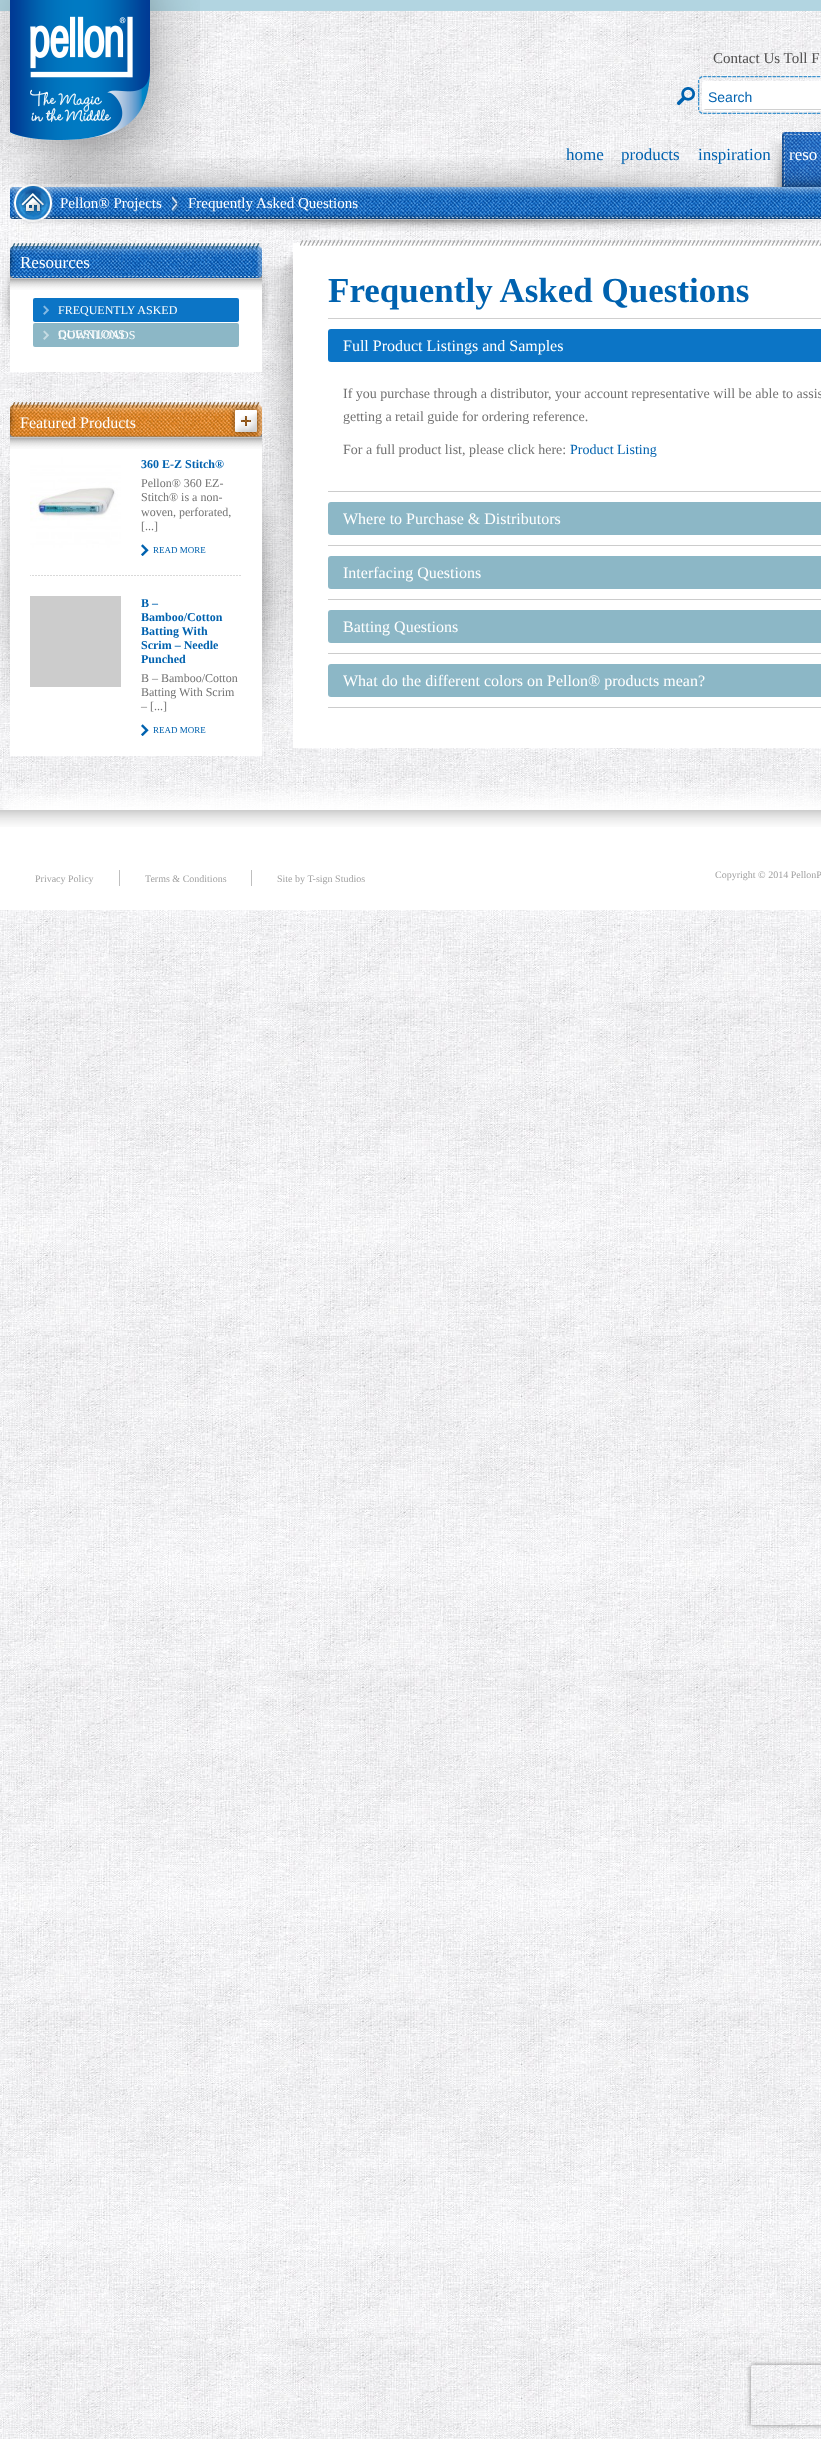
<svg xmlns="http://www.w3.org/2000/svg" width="821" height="2439">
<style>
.a{font:15px Liberation Serif;fill:#504f4f}
.b{font:14px Liberation Sans;fill:#0062af}
.c{font:17px Liberation Serif;fill:#0062af}
.d{font:17px Liberation Serif;fill:#fff}
.e{font:15px Liberation Serif;fill:#fff}
.f{font:12px Liberation Serif;fill:#fff}
.g{font:16px Liberation Serif;fill:#fff}
.h{font:bold 12px Liberation Serif;fill:#0062af}
.i{font:12px Liberation Serif;fill:#727272}
.j{font:9px Liberation Serif;fill:#0062af}
.k{font:bold 35px Liberation Serif;fill:#0062af}
.l{font:14px Liberation Serif;fill:#727272}
.m{font:14px Liberation Serif;fill:#0062af}
.n{font:10px Liberation Serif;fill:#a1a1a1}
</style>
<defs>
<clipPath id="clip1"><path d="M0 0h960v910H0z"/></clipPath>
<clipPath id="clip2"><path d="M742 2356h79v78h-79zm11 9h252c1 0 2 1 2 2v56c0 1-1 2-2 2h-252c-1 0-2-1-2-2v-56c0-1 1-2 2-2z" clip-rule="evenodd"/></clipPath>
</defs>
<rect width="100%" height="100%" fill="#fff"/>
<image href="1.png" x="0" y="11" width="821" height="2428"/>
<path fill="#b2d5e1" d="M0 0h821v11H0z"/>
<image href="7.png" x="10" y="187" width="811" height="32"/>
<image href="8.png" x="13" y="183" width="40" height="40"/>
<image href="2.png" x="0" y="0" width="200" height="184"/>
<image href="3.png" x="677" y="76" width="144" height="38"/>
<rect fill="#fff" x="702" y="81" width="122" height="30" rx="3"/>
<path fill="#d0d0d0" d="M703 109l2 1h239c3 0 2-5 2-6v-8c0-2 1-13-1-14v17c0 1 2 10-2 10z"/>
<rect fill="none" stroke="#fff" x="702.5" y="81.5" width="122" height="29" rx="2.5"/>
<image href="4.png" x="24" y="158" width="758" height="29"/>
<image href="6.png" x="782" y="132" width="39" height="55"/>
<image href="9.png" x="170" y="196" width="10" height="16"/>
<image href="10.png" x="20" y="219" width="801" height="12"/>
<image href="11.png" x="2" y="260" width="8" height="81"/>
<image href="12.png" x="10" y="243" width="252" height="35"/>
<path fill="#fff" d="M10 290h252v82H10z"/>
<image href="13.png" x="10" y="278" width="252" height="12"/>
<rect fill="#0c75c6" x="33" y="298" width="206" height="24" rx="2"/>
<image href="14.png" x="43" y="305" width="6" height="10"/>
<rect fill="#8cb7c6" x="33" y="323" width="206" height="24" rx="2"/>
<image href="15.png" x="43" y="330" width="6" height="10"/>
<image href="16.png" x="262" y="262" width="7" height="78"/>
<image href="17.png" x="10" y="402" width="252" height="35"/>
<image href="18.png" x="230" y="405" width="32" height="32"/>
<path fill="#fff" d="M10 449h252v307H10z"/>
<image href="13.png" x="10" y="437" width="252" height="12"/>
<image href="19.png" x="0" y="471" width="10" height="237"/>
<image href="20.png" x="30" y="575" width="211" height="1"/>
<image href="21.png" x="30" y="457" width="91" height="91"/>
<image href="22.png" x="141" y="544" width="8" height="12"/>
<image href="25.png" x="262" y="283" width="31" height="382"/>
<image href="23.png" x="262" y="453" width="25" height="274"/>
<path fill="#ccc" d="M30 596h91v91H30z"/>
<image href="22.png" x="141" y="724" width="8" height="12"/>
<path fill="#fff" d="M293 243h528v505H293z"/>
<image href="24.png" x="262" y="252" width="31" height="31"/>
<image href="26.png" x="300" y="240" width="521" height="6"/>
<path fill="#cfcfcf" d="M328 318h493v1H328z"/>
<path fill="#ccc" d="M328 491h493v1H328z"/>
<rect fill="#0c75c6" x="328" y="329" width="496" height="33" rx="3"/>
<path fill="#ccc" d="M328 545h493v1H328z"/>
<rect fill="#8cb7c6" x="328" y="502" width="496" height="33" rx="3"/>
<path fill="#ccc" d="M328 599h493v1H328z"/>
<rect fill="#8cb7c6" x="328" y="556" width="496" height="33" rx="3"/>
<path fill="#ccc" d="M328 653h493v1H328z"/>
<rect fill="#8cb7c6" x="328" y="610" width="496" height="33" rx="3"/>
<path fill="#ccc" d="M328 707h493v1H328z"/>
<rect fill="#8cb7c6" x="328" y="664" width="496" height="33" rx="3"/>
<g clip-path="url(#clip1)">
<path fill="#fff" filter="blur(10px)" d="M0 795h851v100H0z"/>
</g>
<path fill="#fff" d="M0 827h821v83H0z"/>
<image href="27.png" x="0" y="810" width="821" height="17"/>
<path fill="#bfbfbf" d="M119 870h1v16H119z"/>
<path fill="#bfbfbf" d="M251 870h1v16H251z"/>
<g clip-path="url(#clip2)">
<rect fill="#808080" filter="blur(2.5px)" x="751" y="2365" width="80" height="60" rx="2"/>
</g>
<text class="a" x="713" y="63">Contact Us Toll F</text>
<text class="b" x="708" y="102">Search</text>
<text class="c" x="566" y="160">home</text>
<text class="c" x="621" y="160">products</text>
<text class="c" x="698" y="160">inspiration</text>
<image href="5.png" x="769" y="139" width="13" height="48"/>
<text class="d" x="789" y="160">reso</text>
<text class="e" x="60" y="208">Pellon® Projects</text>
<text class="e" x="188" y="208">Frequently Asked Questions</text>
<text class="d" x="20" y="268">Resources</text>
<text class="f" x="58" y="314">FREQUENTLY ASKED</text>
<text class="f" x="58" y="338">QUESTIONS</text>
<text class="f" x="58" y="339">DOWNLOADS</text>
<text class="g" x="20" y="428">Featured Products</text>
<text class="h" x="141" y="468">360 E-Z Stitch®</text>
<text class="i" x="141" y="487">Pellon® 360 EZ-</text>
<text class="i" x="141" y="501">Stitch® is a non-</text>
<text class="i" x="141" y="516">woven, perforated,</text>
<text class="i" x="141" y="530">[...]</text>
<text class="j" x="153" y="553">READ MORE</text>
<text class="h" x="141" y="607">B –</text>
<text class="h" x="141" y="621">Bamboo/Cotton</text>
<text class="h" x="141" y="635">Batting With</text>
<text class="h" x="141" y="649">Scrim – Needle</text>
<text class="h" x="141" y="663">Punched</text>
<text class="i" x="141" y="682">B – Bamboo/Cotton</text>
<text class="i" x="141" y="696">Batting With Scrim</text>
<text class="i" x="141" y="710">– [...]</text>
<text class="j" x="153" y="733">READ MORE</text>
<text class="k" x="328" y="302">Frequently Asked Questions</text>
<text class="g" x="343" y="351">Full Product Listings and Samples</text>
<text class="l" x="343" y="398">If you purchase through a distributor, your account representative will be able to assis</text>
<text class="l" x="343" y="421">getting a retail guide for ordering reference.</text>
<text class="l" x="343" y="454">For a full product list, please click here:</text>
<text class="m" x="570" y="454">Product Listing</text>
<text class="g" x="343" y="524">Where to Purchase &amp; Distributors</text>
<text class="g" x="343" y="578">Interfacing Questions</text>
<text class="g" x="343" y="632">Batting Questions</text>
<text class="g" x="343" y="686">What do the different colors on Pellon® products mean?</text>
<text class="n" x="35" y="882">Privacy Policy</text>
<text class="n" x="145" y="882">Terms &amp; Conditions</text>
<text class="n" x="277" y="882">Site by T-sign Studios</text>
<text class="n" x="715" y="878">Copyright © 2014 PellonP</text>
</svg>
